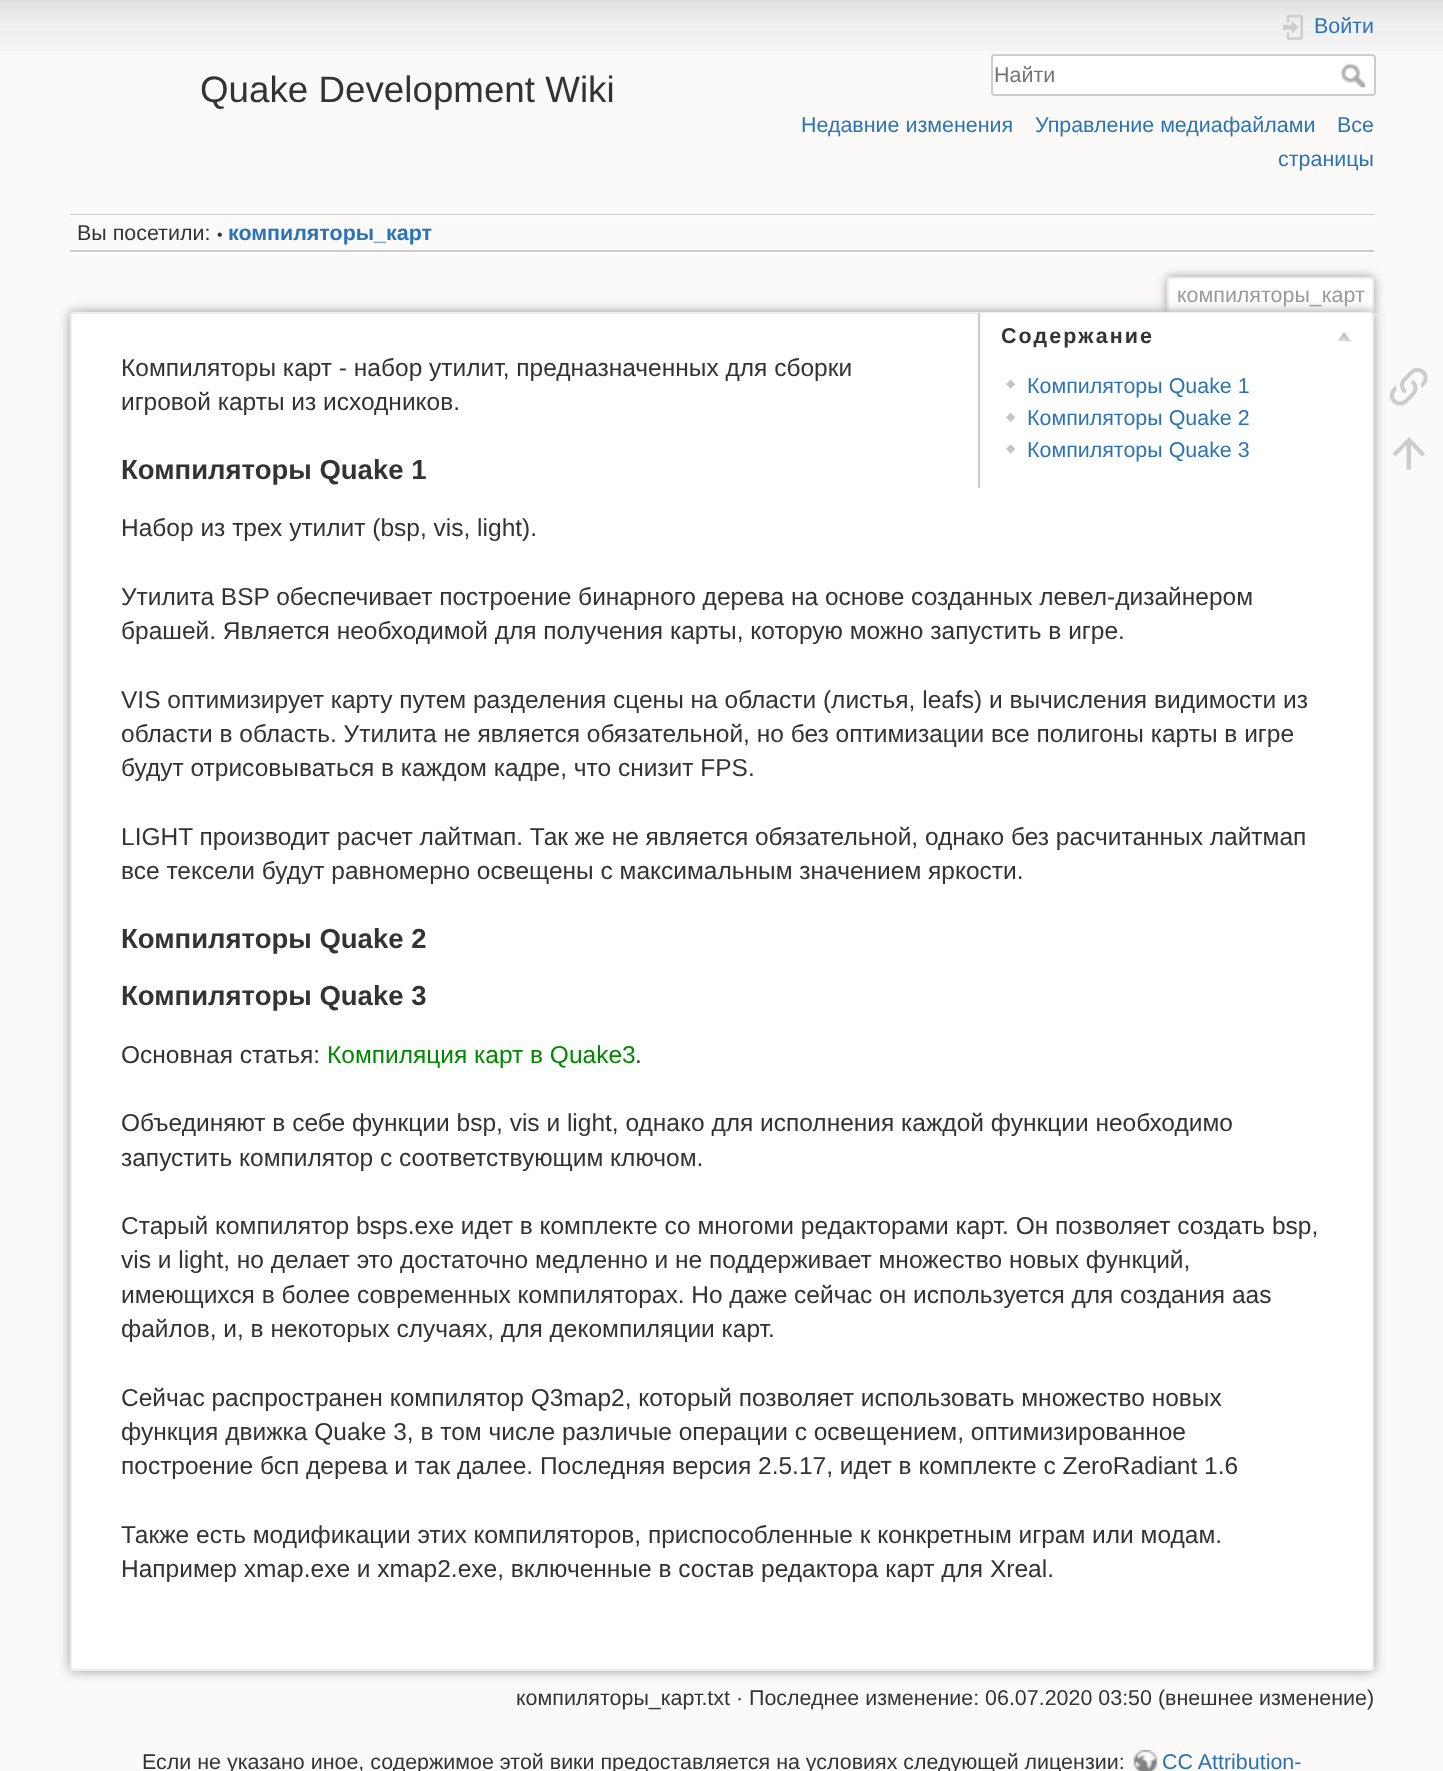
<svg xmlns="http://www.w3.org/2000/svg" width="1443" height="1771">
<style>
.a{font:36.75px Liberation Sans;fill:#333}
.b{font:21.45px Liberation Sans;fill:#2b73b7}
.c{font:21.45px Liberation Sans;fill:#757575}
.d{font:21.45px Liberation Sans;fill:#333}
.e{font:16px Liberation Sans;fill:#333}
.f{font:bold 21.45px Liberation Sans;fill:#2b73b7}
.g{font:21.45px Liberation Sans;fill:#999}
.h{font:24.5px Liberation Sans;fill:#333}
.i{font:bold 21.45px Liberation Sans;letter-spacing:2.1px;fill:#333}
.j{font:bold 27.5px Liberation Sans;fill:#333}
.k{font:24.5px Liberation Sans;fill:#080}
</style>
<defs>
<clipPath id="clip1"><path d="M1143 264h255v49H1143z"/></clipPath>
</defs>
<rect width="100%" height="100%" fill="#fbfaf9"/>
<image href="1.png" x="0" y="0" width="1443" height="51"/>
<image href="2.png" x="1283" y="14" width="20" height="26"/>
<rect fill="#fff" stroke="#ccc" stroke-width="2" x="992" y="55" width="383" height="40" rx="3"/>
<image href="3.png" x="1340" y="63" width="25" height="25"/>
<path fill="#ccc" d="M70 214h1304v1H70z"/>
<path fill="#fff" d="M70 252h1304v2H70z"/>
<path fill="#fff" d="M70 215h1304v2H70z"/>
<path fill="#ccc" d="M70 250h1304v2H70z"/>
<g clip-path="url(#clip1)">
<rect fill="#999" filter="blur(5.5px)" x="1167" y="277" width="207" height="36" rx="4"/>
</g>
<path fill="#fff" d="M1171 278h199c1 0 2 1 2 2v33h-203v-33c0-1 1-2 2-2z"/>
<path fill="#eee" d="M1169 277h203v2H1169z"/>
<path fill="#eee" d="M1372 278h2v35H1372z"/>
<path fill="#eee" d="M1167 278h2v35H1167z"/>
<rect fill="#999" filter="blur(6px)" x="70" y="312" width="1304" height="1359" rx="4"/>
<rect fill="#fff" stroke="#eee" stroke-width="2" x="71" y="313" width="1302" height="1357" rx="3"/>
<path fill="#fff" d="M978 313h392c1 0 2 1 2 2v173h-394z"/>
<path fill="#ccc" d="M978 313h2v175H978z"/>
<image href="4.png" x="1337" y="332" width="14" height="10"/>
<image href="5.png" x="1006" y="379" width="9" height="10"/>
<image href="6.png" x="1006" y="413" width="9" height="10"/>
<image href="7.png" x="1006" y="444" width="9" height="10"/>
<image href="8.png" x="1389" y="367" width="39" height="39"/>
<path fill="#ccc" d="M1411 469.5h-4.5v-24.5l-11 11.5l-3-3l16.5-16.5l16 16.5l-3 3l-11-11.5z"/>
<image href="9.png" x="1133" y="1750" width="25" height="21"/>
<text class="a" x="200" y="102">Quake Development Wiki</text>
<text class="b" x="1314" y="33">Войти</text>
<text class="c" x="994" y="82">Найти</text>
<text class="b" x="801" y="132">Недавние изменения</text>
<text class="b" x="1035" y="132">Управление медиафайлами</text>
<text class="b" x="1337" y="132">Все</text>
<text class="b" x="1278" y="166">страницы</text>
<text class="d" x="77" y="240">Вы посетили:</text>
<text class="e" x="217" y="240">•</text>
<text class="f" x="228" y="240">компиляторы_карт</text>
<text class="g" x="1177" y="302">компиляторы_карт</text>
<text class="h" x="121" y="376">Компиляторы карт - набор утилит, предназначенных для сборки</text>
<text class="h" x="121" y="410">игровой карты из исходников.</text>
<text class="i" x="1001" y="343">Содержание</text>
<text class="b" x="1027" y="393">Компиляторы Quake 1</text>
<text class="b" x="1027" y="425">Компиляторы Quake 2</text>
<text class="b" x="1027" y="457">Компиляторы Quake 3</text>
<text class="j" x="121" y="479">Компиляторы Quake 1</text>
<text class="h" x="121" y="536">Набор из трех утилит (bsp, vis, light).</text>
<text class="h" x="121" y="605">Утилита BSP обеспечивает построение бинарного дерева на основе созданных левел-дизайнером</text>
<text class="h" x="121" y="639">брашей. Является необходимой для получения карты, которую можно запустить в игре.</text>
<text class="h" x="121" y="708">VIS оптимизирует карту путем разделения сцены на области (листья, leafs) и вычисления видимости из</text>
<text class="h" x="121" y="742">области в область. Утилита не является обязательной, но без оптимизации все полигоны карты в игре</text>
<text class="h" x="121" y="776">будут отрисовываться в каждом кадре, что снизит FPS.</text>
<text class="h" x="121" y="845">LIGHT производит расчет лайтмап. Так же не является обязательной, однако без расчитанных лайтмап</text>
<text class="h" x="121" y="879">все тексели будут равномерно освещены с максимальным значением яркости.</text>
<text class="j" x="121" y="948">Компиляторы Quake 2</text>
<text class="j" x="121" y="1005">Компиляторы Quake 3</text>
<text class="h" x="121" y="1063">Основная статья:</text>
<text class="k" x="327" y="1063">Компиляция карт в Quake3</text>
<text class="h" x="635" y="1063">.</text>
<text class="h" x="121" y="1131">Объединяют в себе функции bsp, vis и light, однако для исполнения каждой функции необходимо</text>
<text class="h" x="121" y="1166">запустить компилятор с соответствующим ключом.</text>
<text class="h" x="121" y="1234">Старый компилятор bsps.exe идет в комплекте со многоми редакторами карт. Он позволяет создать bsp,</text>
<text class="h" x="121" y="1268">vis и light, но делает это достаточно медленно и не поддерживает множество новых функций,</text>
<text class="h" x="121" y="1303">имеющихся в более современных компиляторах. Но даже сейчас он используется для создания aas</text>
<text class="h" x="121" y="1337">файлов, и, в некоторых случаях, для декомпиляции карт.</text>
<text class="h" x="121" y="1406">Сейчас распространен компилятор Q3map2, который позволяет использовать множество новых</text>
<text class="h" x="121" y="1440">функция движка Quake 3, в том числе различые операции с освещением, оптимизированное</text>
<text class="h" x="121" y="1474">построение бсп дерева и так далее. Последняя версия 2.5.17, идет в комплекте с ZeroRadiant 1.6</text>
<text class="h" x="121" y="1543">Также есть модификации этих компиляторов, приспособленные к конкретным играм или модам.</text>
<text class="h" x="121" y="1577">Например xmap.exe и xmap2.exe, включенные в состав редактора карт для Xreal.</text>
<text class="d" x="516" y="1705">компиляторы_карт.txt · Последнее изменение: 06.07.2020 03:50 (внешнее изменение)</text>
<text class="d" x="142" y="1769">Если не указано иное, содержимое этой вики предоставляется на условиях следующей лицензии:</text>
<text class="b" x="1162" y="1769">CC Attribution-</text>
</svg>
